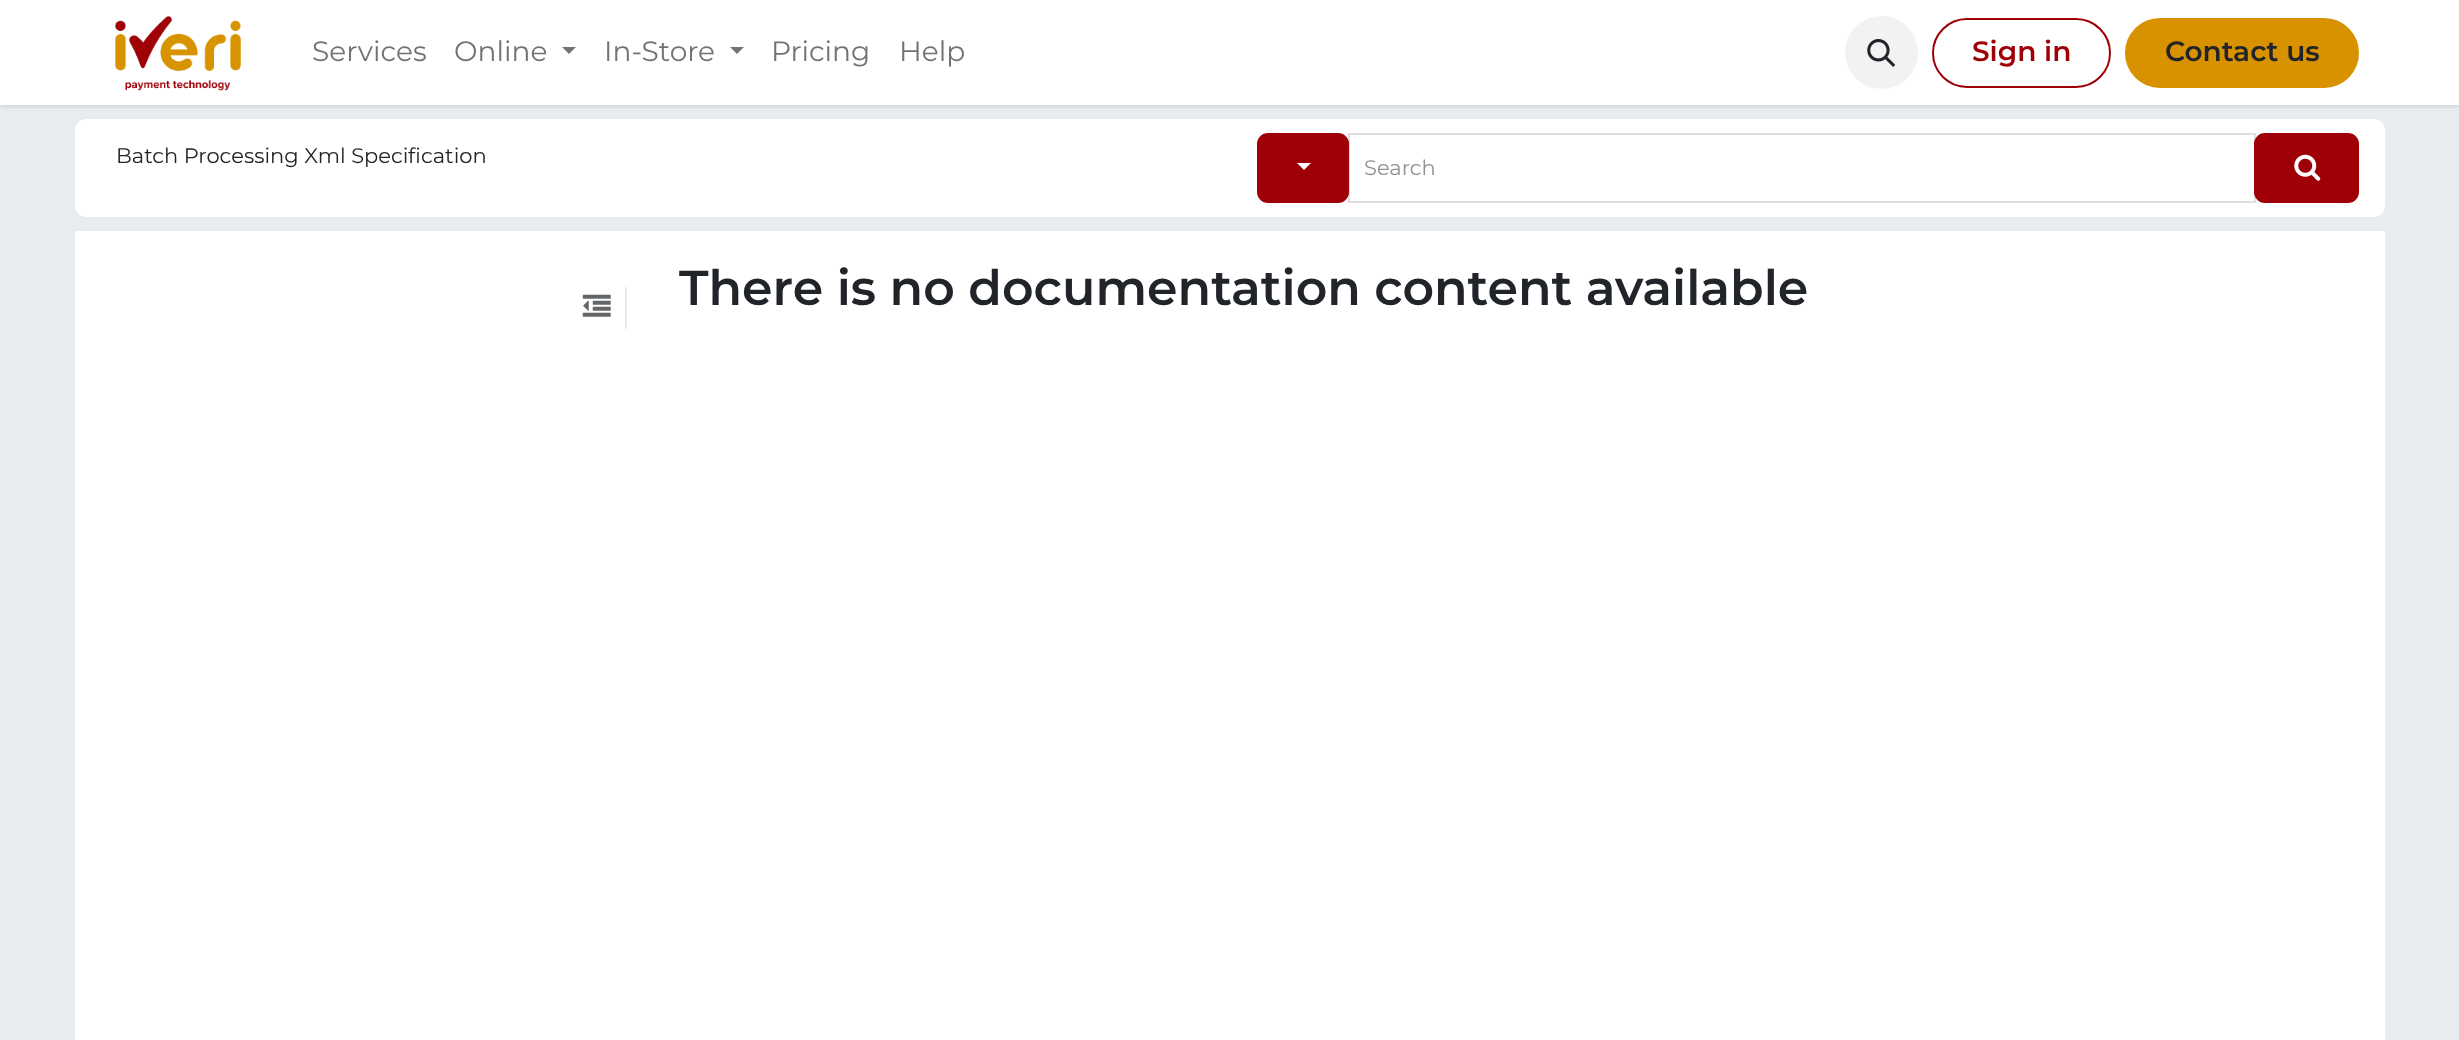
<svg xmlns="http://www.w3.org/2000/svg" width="2459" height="1040">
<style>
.a{font:28px Montserrat;fill:#737373}
.b{font:600 28px Montserrat;fill:#9e0006}
.c{font:600 28px Montserrat;fill:#212529}
.d{font:21px Montserrat;fill:#212529}
.e{font:21px Montserrat;fill:#909294}
.f{font:600 49px Montserrat;fill:#212529}
</style>
<defs>
<clipPath id="clip1"><path d="M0 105h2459v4H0z"/></clipPath>
</defs>
<rect width="100%" height="100%" fill="#fff"/>
<path fill="#e9ecef" d="M0 105h2459v935H0z"/>
<g clip-path="url(#clip1)">
<path fill="#0000001a" filter="blur(2.5px)" d="M0 2h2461v105H0z"/>
</g>
<image href="1.png" x="115" y="16" width="126" height="75"/>
<path fill="#737373" d="M562 47h14l-7 7z"/>
<path fill="#737373" d="M730 47h14l-7 7z"/>
<circle fill="#f2f2f2" cx="1881.5" cy="52.5" r="36.5"/>
<image href="2.png" x="1867" y="39" width="29" height="28"/>
<rect fill="none" stroke="#9e0006" stroke-width="2" x="1933" y="19" width="177" height="68" rx="34"/>
<rect fill="#d89200" stroke="#d89200" stroke-width="2" x="2126" y="19" width="232" height="68" rx="34"/>
<rect fill="#fff" x="75" y="119" width="2310" height="98" rx="11"/>
<path fill="none" stroke="#dededf" stroke-width="2" d="M1349 134h906v68H1349z"/>
<rect fill="#9e0006" stroke="#9e0006" stroke-width="2" x="1258" y="134" width="90" height="68" rx="10"/>
<path fill="#fff" d="M1297 163h14l-7 7z"/>
<rect fill="#9e0006" stroke="#9e0006" stroke-width="2" x="2255" y="134" width="103" height="68" rx="10"/>
<image href="3.png" x="2294" y="154" width="27" height="27"/>
<path fill="#fff" d="M75 231h2310v809H75z"/>
<path fill="#e9ecef" d="M625 287h2v42H625z"/>
<image href="4.png" x="582" y="294" width="29" height="23"/>
<text class="a" x="312" y="61">Services</text>
<text class="a" x="454" y="61">Online</text>
<text class="a" x="604" y="61">In-Store</text>
<text class="a" x="771" y="61">Pricing</text>
<text class="a" x="899" y="61">Help</text>
<text class="b" x="1972" y="61">Sign in</text>
<text class="c" x="2165" y="61">Contact us</text>
<text class="d" x="116" y="163">Batch Processing Xml Specification</text>
<text class="e" x="1364" y="175">Search</text>
<text class="f" x="679" y="305">There is no documentation content available</text>
</svg>
